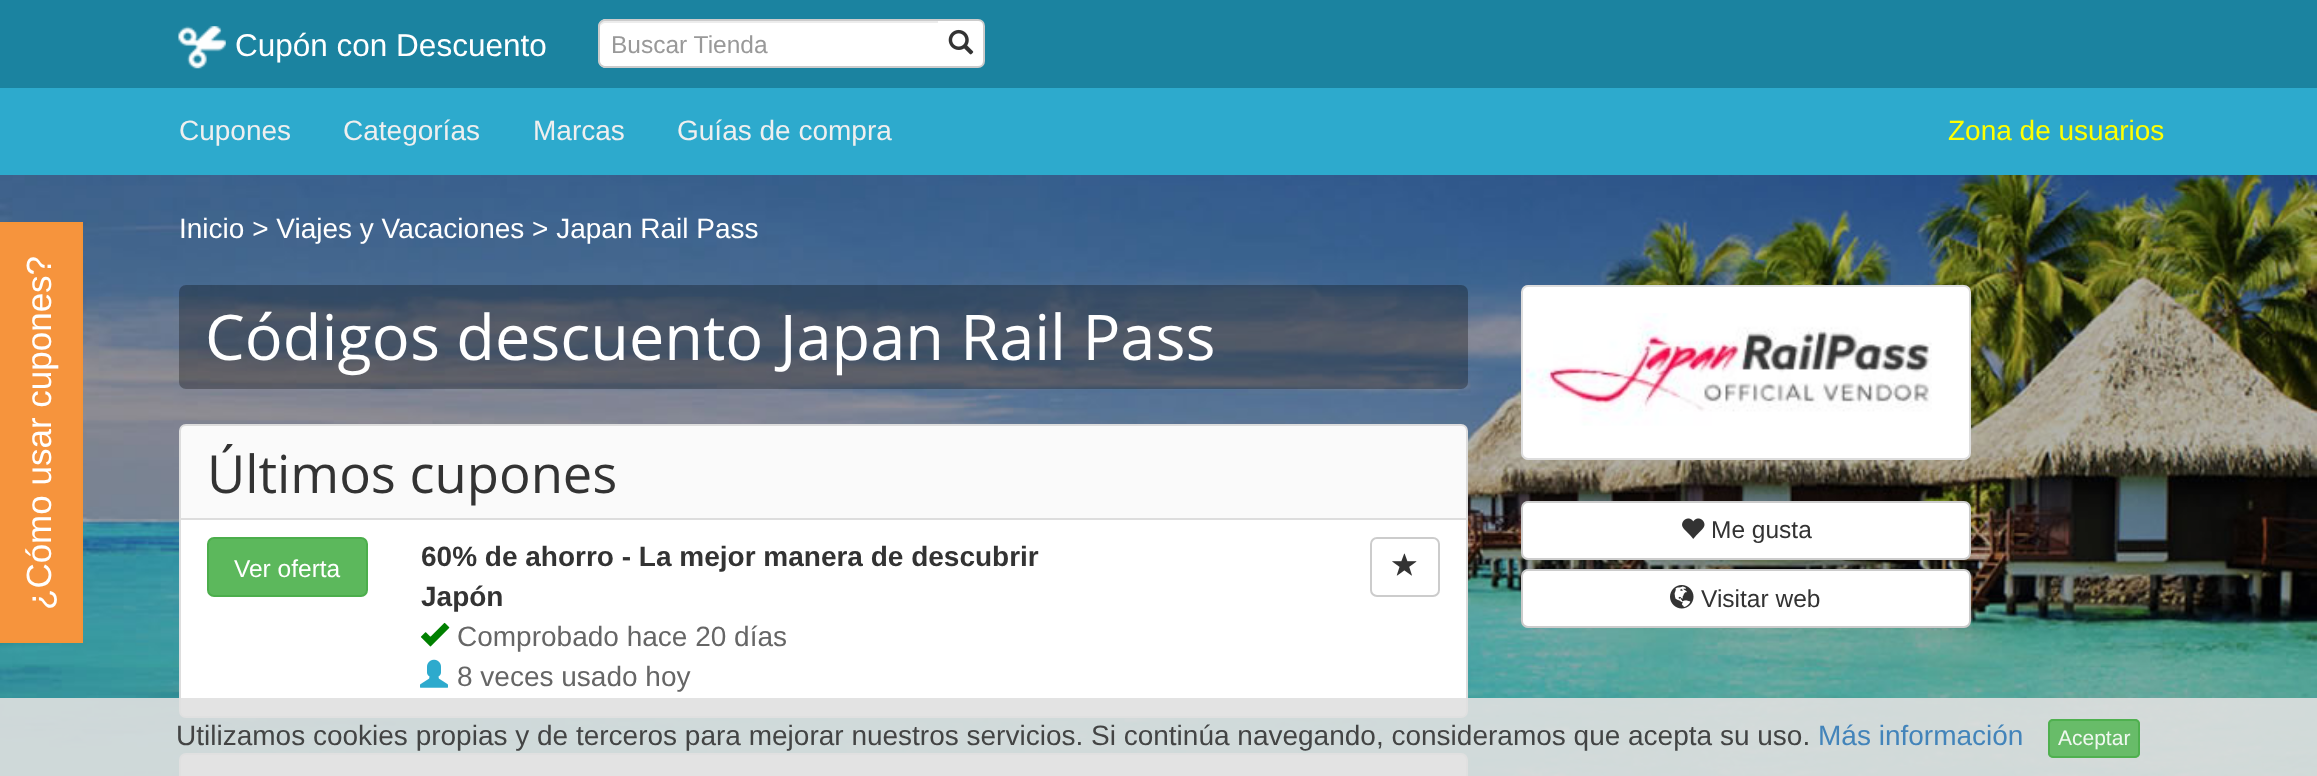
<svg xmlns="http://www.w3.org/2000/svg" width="2317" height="776">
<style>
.a{font:31.5px Liberation Sans;fill:#fff}
.b{font:24.5px Liberation Sans;fill:#999}
.c{font:28px Liberation Sans;fill:#efefef}
.d{font:28px Liberation Sans;fill:#ff0}
.e{font:35px Liberation Sans;fill:#fff}
.f{font:28px Liberation Sans;fill:#fff}
.g{font:63px Open Sans;fill:#fff}
.h{font:52.5px Open Sans;fill:#333}
.i{font:24.5px Liberation Sans;fill:#fff}
.j{font:bold 28px Liberation Sans;fill:#333}
.k{font:28px Liberation Sans;fill:#666}
.l{font:24.5px Liberation Sans;fill:#333}
.m{font:28px Liberation Sans;fill:#434444}
.n{font:28px Liberation Sans;fill:#4384ba}
.o{font:21px Liberation Sans;fill:#f0f8f0}
</style>
<rect width="100%" height="100%" fill="#fff"/>
<path fill="#1b83a0" d="M0 0h2317v88H0z"/>
<image href="1.png" x="178" y="26" width="48" height="43"/>
<path fill="#fff" stroke="#ccc" stroke-width="2" d="M937 20h41c3.5 0 6 2.5 6 6v35c0 3.5-2.5 6-6 6h-41z"/>
<path fill="#fff" d="M606 19h332v49h-332c-4 0-7-3-7-7v-35c0-4 3-7 7-7z"/>
<path fill="#ececec" d="M606 23h332v-2h-333c-4 0-5 4-5 7c0-3 3-5 6-5z"/>
<path fill="#ccc" fill-rule="evenodd" d="M606 19h332v49h-332c-4 0-8-3-8-7v-35c0-4 4-7 8-7zm0 2h332v45h-332c-3 0-6-2-6-5v-35c0-3 3-5 6-5z"/>
<image href="2.png" x="948" y="29" width="26" height="26"/>
<path fill="#2daacd" d="M0 88h2317v87H0z"/>
<image href="3.png" x="0" y="175" width="2317" height="601"/>
<path fill="#f6943d" d="M0 222h83v421H0z"/>
<path fill="none" stroke="#f69437" stroke-width="1.8" d="M-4.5 642v-418.5h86.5v418.5z"/>
<rect fill="#0000004d" x="179" y="285" width="1289" height="104" rx="7"/>
<path fill="#fafafa" stroke="#ddd" stroke-width="2" d="M186 425h1275c3.5 0 6 2.5 6 6v88h-1287v-88c0-3.5 2.5-6 6-6z"/>
<path fill="#fff" stroke="#ddd" stroke-width="2" d="M180 519h1287v192c0 3.5-2.5 6-6 6h-1275c-3.5 0-6-2.5-6-6z"/>
<rect fill="#5cb85c" stroke="#4cae4c" stroke-width="2" x="208" y="538" width="159" height="58" rx="6"/>
<image href="4.png" x="420" y="622" width="30" height="25"/>
<image href="5.png" x="420" y="659" width="28" height="29"/>
<rect fill="none" stroke="#ccc" stroke-width="2" x="1371" y="538" width="68" height="58" rx="6"/>
<image href="6.png" x="1392" y="553" width="25" height="23"/>
<rect fill="#fff" stroke="#ddd" stroke-width="2" x="180" y="754" width="1287" height="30" rx="6"/>
<rect fill="#fff" stroke="#ddd" stroke-width="2" x="1522" y="286" width="448" height="173" rx="6"/>
<image href="7.png" x="1526" y="313" width="406" height="113"/>
<rect fill="#fff" stroke="#ccc" stroke-width="2" x="1522" y="502" width="448" height="57" rx="6"/>
<image href="8.png" x="1682" y="518" width="23" height="21"/>
<rect fill="#fff" stroke="#ccc" stroke-width="2" x="1522" y="570" width="448" height="57" rx="6"/>
<image href="9.png" x="1670" y="585" width="24" height="24"/>
<path fill="#e0e0e0e6" d="M0 698h2317v78H0z"/>
<rect fill="#5cb85ce6" x="2048" y="719" width="92" height="39" rx="5"/>
<rect fill="none" stroke="#4cae4ce6" stroke-width="2" x="2049" y="720" width="90" height="37" rx="4"/>
<text class="a" x="235" y="56">Cupón con Descuento</text>
<text class="b" x="611" y="53">Buscar Tienda</text>
<text class="c" x="179" y="140">Cupones</text>
<text class="c" x="343" y="140">Categorías</text>
<text class="c" x="533" y="140">Marcas</text>
<text class="c" x="677" y="140">Guías de compra</text>
<text class="d" x="1948" y="140">Zona de usuarios</text>
<text class="e" x="51" y="610" transform="rotate(-90 51 610)">¿Cómo usar cupones?</text>
<text class="f" x="179" y="238">Inicio &gt; Viajes y Vacaciones &gt; Japan Rail Pass</text>
<text class="g" x="205" y="360">Códigos descuento Japan Rail Pass</text>
<text class="h" x="207" y="493">Últimos cupones</text>
<text class="i" x="234" y="577">Ver oferta</text>
<text class="j" x="421" y="566">60% de ahorro - La mejor manera de descubrir</text>
<text class="j" x="421" y="606">Japón</text>
<text class="k" x="457" y="646">Comprobado hace 20 días</text>
<text class="k" x="457" y="686">8 veces usado hoy</text>
<text class="l" x="1711" y="538">Me gusta</text>
<text class="l" x="1701" y="607">Visitar web</text>
<text class="m" x="176" y="745">Utilizamos cookies propias y de terceros para mejorar nuestros servicios. Si continúa navegando, consideramos que acepta su uso.</text>
<text class="n" x="1818" y="745">Más información</text>
<text class="o" x="2058" y="745">Aceptar</text>
</svg>
